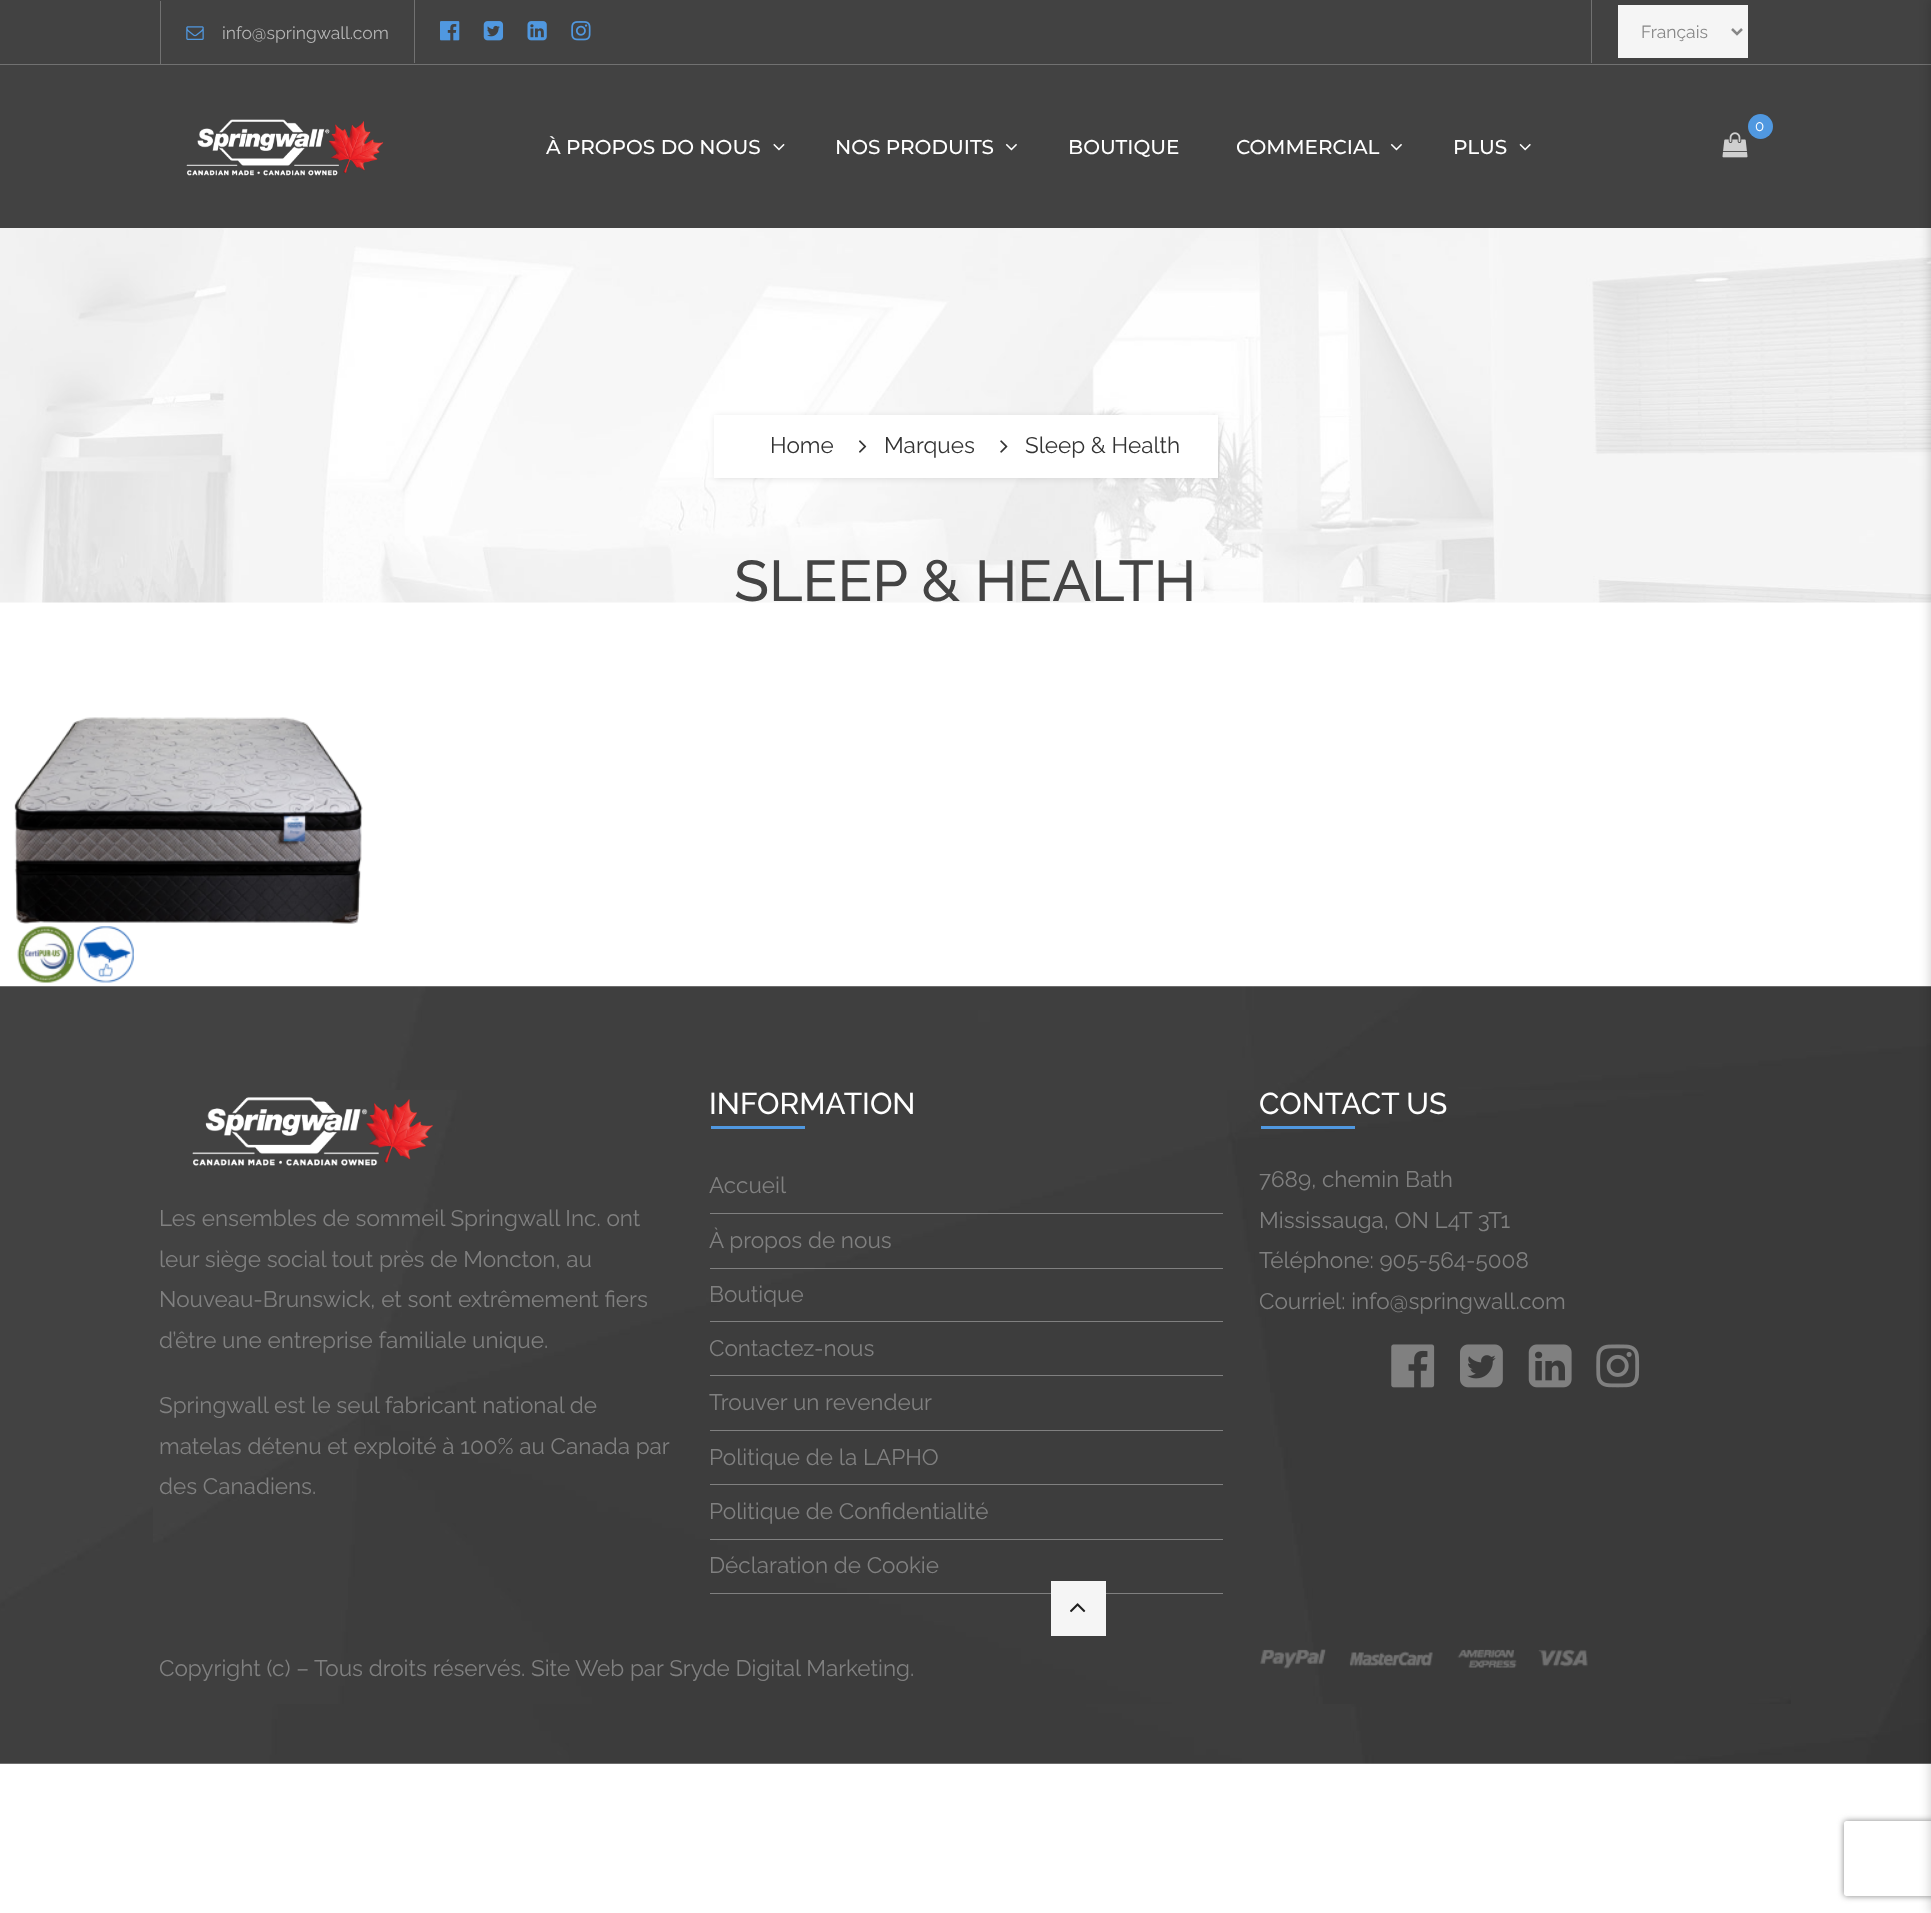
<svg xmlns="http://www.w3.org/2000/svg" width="1931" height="1913">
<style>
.a{font:17.5px Raleway;fill:#b5b5b5}
.b{font:17.5px Raleway;fill:#878787}
.c{font:15px Raleway;fill:#fff}
.d{font:500 20px Montserrat;fill:#fff}
.e{font:22.5px Raleway;fill:#333}
.f{font:500 57.5px Raleway;fill:#444}
.g{font:22.5px Raleway;fill:#808080}
.h{font:500 30px Raleway;fill:#fff}
</style>
<defs>
<clipPath id="clip1"><path d="M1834 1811h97v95h-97zm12.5 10h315c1.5 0 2.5 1 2.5 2.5v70c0 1.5-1 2.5-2.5 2.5h-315c-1.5 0-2.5-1-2.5-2.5v-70c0-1.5 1-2.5 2.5-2.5z" clip-rule="evenodd"/></clipPath>
</defs>
<rect width="100%" height="100%" fill="#fff"/>
<path fill="#424242" d="M0 0h1931v64H0z"/>
<path fill="#717171" d="M0 64h1931v1H0z"/>
<path fill="#717171" d="M160 1h1v63H160z"/>
<image href="1.png" x="186" y="26" width="18" height="14"/>
<path fill="#717171" d="M414 0h1v63H414z"/>
<image href="2.png" x="440" y="21" width="20" height="20"/>
<image href="3.png" x="483" y="21" width="21" height="20"/>
<image href="4.png" x="527" y="21" width="20" height="20"/>
<image href="5.png" x="571" y="21" width="20" height="20"/>
<path fill="#717171" d="M1591 0h1v63H1591z"/>
<path fill="#f5f5f5" d="M1618 5h130v53H1618z"/>
<path fill="none" stroke="#878787" stroke-width="2.5" d="M1732 29l5 5l5-5"/>
<path fill="#424242" d="M0 65h1931v163H0z"/>
<image href="6.png" x="186" y="119" width="198" height="57"/>
<circle fill="#5098e0" cx="1760.5" cy="126.5" r="12.5"/>
<image href="7.png" x="1722" y="132" width="26" height="26"/>
<image href="8.png" x="773" y="143" width="12" height="8"/>
<image href="9.png" x="1005" y="143" width="12" height="8"/>
<image href="9.png" x="1390" y="143" width="12" height="8"/>
<image href="10.png" x="1519" y="143" width="12" height="8"/>
<image href="13.png" x="0" y="228" width="1931" height="375"/>
<path fill="#0000001a" filter="blur(3px)" d="M715 416h504v63H715z"/>
<path fill="#fff" d="M714 415h504v63H714z"/>
<image href="11.png" x="859" y="440" width="8" height="13"/>
<image href="12.png" x="1000" y="440" width="8" height="13"/>
<image href="14.png" x="14" y="717" width="349" height="266"/>
<image href="15.png" x="0" y="986" width="1931" height="778"/>
<image href="16.png" x="153" y="1090" width="1638" height="614"/>
<image href="17.png" x="192" y="1097" width="242" height="69"/>
<path fill="#5098e0" d="M711 1126h94v3H711z"/>
<path fill="#808080" d="M710 1213h513v1H710z"/>
<path fill="#808080" d="M710 1268h513v1H710z"/>
<path fill="#808080" d="M710 1321h513v1H710z"/>
<path fill="#808080" d="M710 1375h513v1H710z"/>
<path fill="#808080" d="M710 1430h513v1H710z"/>
<path fill="#808080" d="M710 1484h513v1H710z"/>
<path fill="#808080" d="M710 1539h513v1H710z"/>
<path fill="#808080" d="M710 1593h513v1H710z"/>
<path fill="#5098e0" d="M1261 1126h94v3H1261z"/>
<image href="18.png" x="1391" y="1344" width="44" height="44"/>
<image href="19.png" x="1460" y="1344" width="43" height="44"/>
<image href="20.png" x="1528" y="1344" width="44" height="44"/>
<image href="21.png" x="1596" y="1344" width="44" height="44"/>
<path fill="#f5f5f5" d="M1051 1581h55v55H1051z"/>
<image href="22.png" x="1070" y="1603" width="16" height="10"/>
<image href="23.png" x="1260" y="1649" width="328" height="20"/>
<path fill="#00000033" filter="blur(6px)" d="M1931 0h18v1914H1931z"/>
<g clip-path="url(#clip1)">
<rect fill="#808080" filter="blur(3px)" x="1844" y="1821" width="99" height="75" rx="2.5"/>
</g>
<text class="a" x="222" y="39">info@springwall.com</text>
<text class="b" x="1641" y="38">Français</text>
<text class="c" x="1755" y="131">0</text>
<text class="d" x="546" y="154">À PROPOS DO NOUS</text>
<text class="d" x="835" y="154">NOS PRODUITS</text>
<text class="d" x="1068" y="154">BOUTIQUE</text>
<text class="d" x="1236" y="154">COMMERCIAL</text>
<text class="d" x="1453" y="154">PLUS</text>
<text class="e" x="770" y="453">Home</text>
<text class="e" x="884" y="453">Marques</text>
<text class="e" x="1025" y="453">Sleep &amp; Health</text>
<text class="f" x="734" y="601">SLEEP &amp; HEALTH</text>
<text class="g" x="159" y="1226">Les ensembles de sommeil Springwall Inc. ont</text>
<text class="g" x="159" y="1267">leur siège social tout près de Moncton, au</text>
<text class="g" x="159" y="1307">Nouveau-Brunswick, et sont extrêmement fiers</text>
<text class="g" x="159" y="1348">d’être une entreprise familiale unique.</text>
<text class="g" x="159" y="1413">Springwall est le seul fabricant national de</text>
<text class="g" x="159" y="1454">matelas détenu et exploité à 100% au Canada par</text>
<text class="g" x="159" y="1494">des Canadiens.</text>
<text class="h" x="709" y="1114">INFORMATION</text>
<text class="g" x="709" y="1193">Accueil</text>
<text class="g" x="709" y="1248">À propos de nous</text>
<text class="g" x="709" y="1302">Boutique</text>
<text class="g" x="709" y="1356">Contactez-nous</text>
<text class="g" x="709" y="1410">Trouver un revendeur</text>
<text class="g" x="709" y="1465">Politique de la LAPHO</text>
<text class="g" x="709" y="1519">Politique de Confidentialité</text>
<text class="g" x="709" y="1573">Déclaration de Cookie</text>
<text class="h" x="1259" y="1114">CONTACT US</text>
<text class="g" x="1259" y="1187">7689, chemin Bath</text>
<text class="g" x="1259" y="1228">Mississauga, ON L4T 3T1</text>
<text class="g" x="1259" y="1268">Téléphone: 905-564-5008</text>
<text class="g" x="1259" y="1309">Courriel: info@springwall.com</text>
<text class="g" x="159" y="1676">Copyright (c) – Tous droits réservés. Site Web par Sryde Digital Marketing.</text>
</svg>
